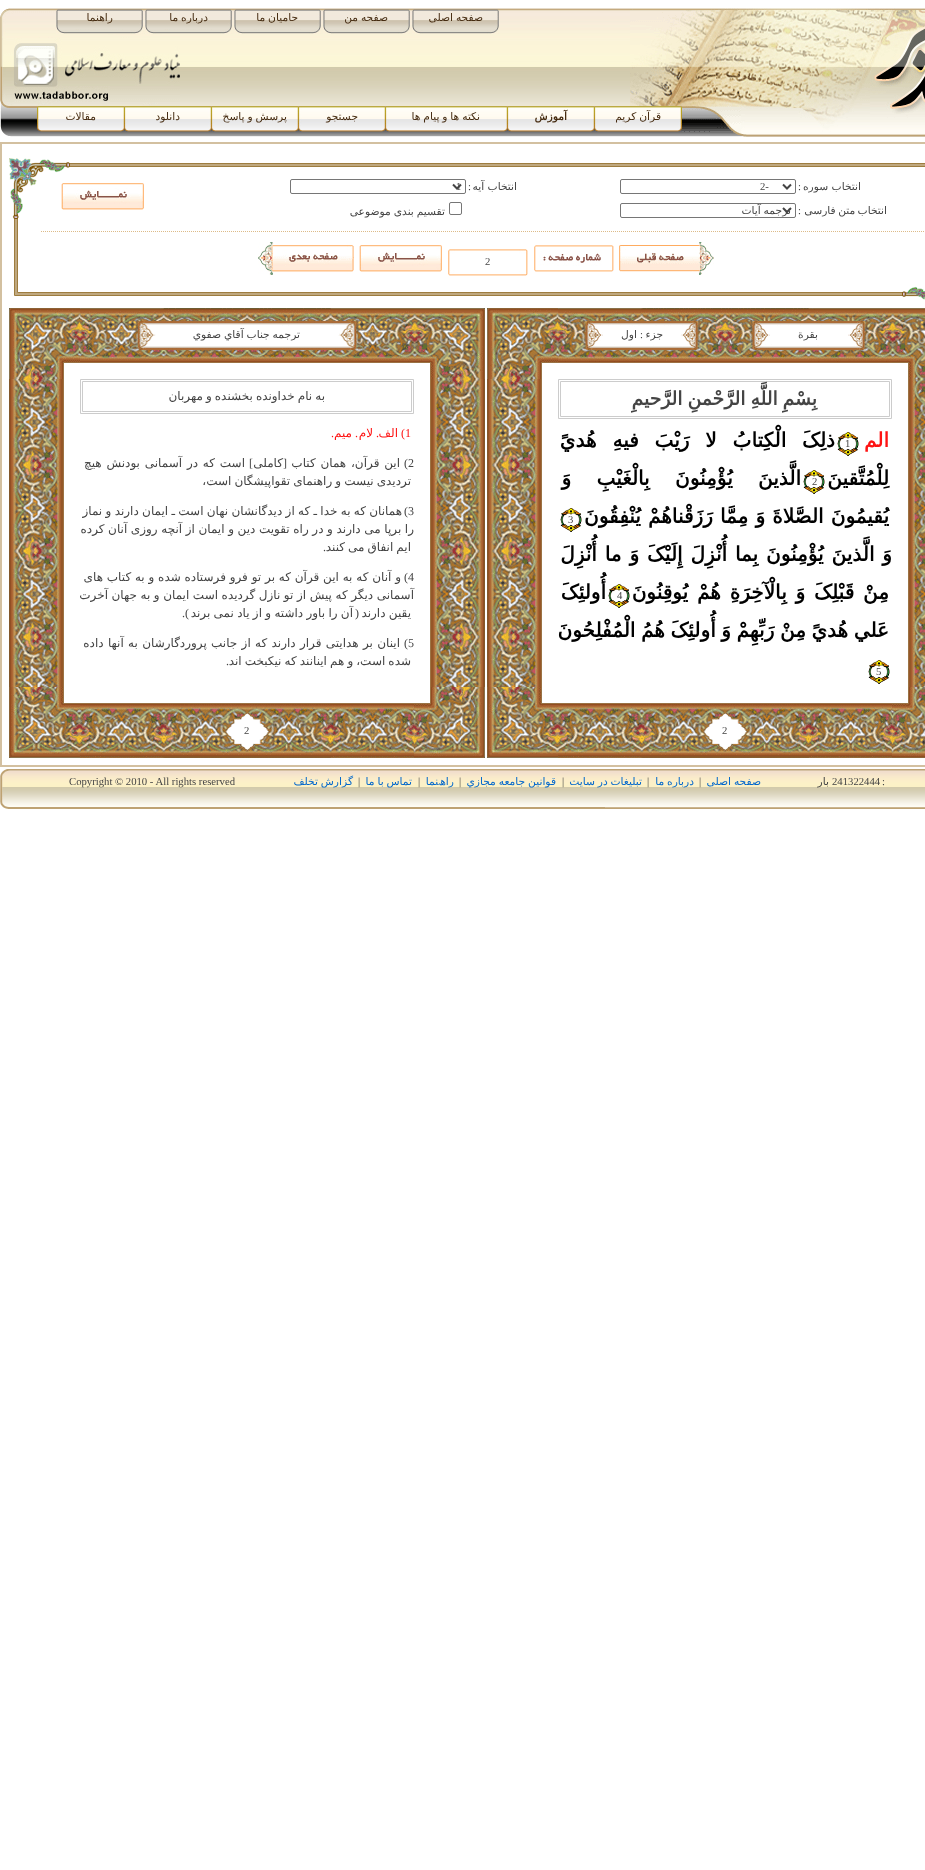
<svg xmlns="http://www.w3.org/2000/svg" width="925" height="1870">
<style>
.a{font:10.7px DejaVu Sans;direction:rtl;fill:#452b10}
.b{font:bold 10.7px DejaVu Sans;direction:rtl;fill:#452b10}
.c{font:10.7px DejaVu Sans;direction:rtl;fill:#444}
.d{font:10.7px Liberation Serif;direction:rtl;fill:#444}
.e{font:10.7px Liberation Serif;fill:#444}
.f{font:bold 18.75px DejaVu Sans;direction:rtl;fill:#444}
.g{font:bold 20px DejaVu Sans;direction:rtl;fill:#000}
.h{font:bold 20px DejaVu Sans;direction:rtl;fill:#fe1313}
.i{font:12px DejaVu Sans;direction:rtl;fill:#444}
.j{font:12px Liberation Serif;fill:#fe1313}
.k{font:12px Liberation Serif;direction:rtl;fill:#fe1313}
.l{font:12px DejaVu Sans;direction:rtl;fill:#fe1313}
.m{font:12px Liberation Serif;fill:#444}
.n{font:12px Liberation Serif;direction:rtl;fill:#444}
.o{font:10.7px DejaVu Sans;direction:rtl;fill:#06c}
</style>
<rect width="100%" height="100%" fill="#fff"/>
<image href="1.png" x="180" y="8" width="561" height="129"/>
<image href="2.png" x="870" y="8" width="55" height="129"/>
<image href="3.png" x="741" y="8" width="129" height="129"/>
<image href="4.png" x="630" y="8" width="111" height="128"/>
<image href="5.png" x="0" y="8" width="180" height="129"/>
<image href="6.png" x="412" y="9" width="87" height="25"/>
<image href="6.png" x="323" y="9" width="87" height="25"/>
<image href="6.png" x="234" y="9" width="87" height="25"/>
<image href="7.png" x="144" y="9" width="88" height="25"/>
<image href="8.png" x="56" y="9" width="88" height="25"/>
<image href="9.png" x="678" y="106" width="4" height="26"/>
<image href="10.png" x="598" y="106" width="80" height="26"/>
<image href="11.png" x="591" y="106" width="7" height="26"/>
<image href="10.png" x="511" y="106" width="80" height="26"/>
<image href="11.png" x="504" y="106" width="7" height="26"/>
<image href="12.png" x="389" y="106" width="115" height="26"/>
<image href="11.png" x="382" y="106" width="7" height="26"/>
<image href="10.png" x="302" y="106" width="80" height="26"/>
<image href="11.png" x="295" y="106" width="7" height="26"/>
<image href="10.png" x="215" y="106" width="80" height="26"/>
<image href="11.png" x="208" y="106" width="7" height="26"/>
<image href="10.png" x="128" y="106" width="80" height="26"/>
<image href="11.png" x="121" y="106" width="7" height="26"/>
<image href="10.png" x="41" y="106" width="80" height="26"/>
<image href="13.png" x="37" y="106" width="4" height="26"/>
<path fill="none" stroke="#d3c0a0" stroke-width="2" d="M1 143h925v623H1z"/>
<path fill="#bfa87f" stroke="#9e7d40" d="M14.5 163.5h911v132H14.5z"/>
<path fill="#fff" stroke="#9e7d40" d="M17.5 166.5h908v126H17.5z"/>
<rect fill="none" stroke="#767676" x="620.5" y="179.5" width="175" height="14" rx="1.5"/>
<path fill="none" stroke="#444" stroke-width="2" d="M783 184.5l4 4l4-4"/>
<rect fill="none" stroke="#767676" x="290.5" y="179.5" width="175" height="14" rx="1.5"/>
<path fill="none" stroke="#444" stroke-width="2" d="M453 184.5l4 4l4-4"/>
<image href="14.png" x="61" y="183" width="83" height="27"/>
<rect fill="none" stroke="#767676" x="620.5" y="203.5" width="175" height="14" rx="1.5"/>
<path fill="none" stroke="#444" stroke-width="2" d="M783 208l4 4l4-4"/>
<rect fill="none" stroke="#767676" x="449.5" y="202.5" width="12" height="12" rx="1.5"/>
<path fill="none" stroke="#db8" stroke-dasharray="1 1" d="M41 231.5h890"/>
<image href="15.png" x="619" y="242" width="95" height="33"/>
<image href="16.png" x="534" y="245" width="80" height="27"/>
<image href="17.png" x="448" y="249" width="80" height="27"/>
<image href="14.png" x="359" y="245" width="83" height="27"/>
<image href="18.png" x="258" y="242" width="96" height="33"/>
<image href="19.png" x="9" y="158" width="61" height="61"/>
<image href="20.png" x="902" y="286" width="23" height="14"/>
<image href="21.png" x="9" y="379" width="916" height="308"/>
<image href="22.png" x="892" y="308" width="33" height="71"/>
<image href="23.png" x="558" y="308" width="334" height="55"/>
<image href="24.png" x="487" y="308" width="71" height="71"/>
<path fill="none" stroke="#ccc" d="M558.5 379.5h333v39H558.5z"/>
<path fill="none" stroke="#ccc" d="M560.5 381.5h329v35H560.5z"/>
<image href="25.png" x="803" y="470" width="22" height="24"/>
<image href="25.png" x="837" y="432" width="22" height="24"/>
<image href="25.png" x="560" y="508" width="22" height="24"/>
<image href="25.png" x="608" y="584" width="22" height="24"/>
<image href="25.png" x="868" y="660" width="22" height="24"/>
<image href="26.png" x="414" y="308" width="71" height="71"/>
<image href="27.png" x="80" y="308" width="334" height="55"/>
<image href="24.png" x="9" y="308" width="71" height="71"/>
<path fill="none" stroke="#ccc" d="M80.5 379.5h333v34H80.5z"/>
<path fill="none" stroke="#ccc" d="M82.5 381.5h329v30H82.5z"/>
<image href="28.png" x="892" y="687" width="33" height="71"/>
<image href="29.png" x="558" y="703" width="334" height="55"/>
<image href="30.png" x="487" y="687" width="71" height="71"/>
<image href="31.png" x="414" y="687" width="71" height="71"/>
<image href="29.png" x="80" y="703" width="334" height="55"/>
<image href="30.png" x="9" y="687" width="71" height="71"/>
<image href="32.png" x="0" y="769" width="925" height="40"/>
<text class="a" x="483" y="21" word-spacing="-0.5">صفحه اصلی</text>
<text class="a" x="388" y="21" word-spacing="-0.5">صفحه من</text>
<text class="a" x="298" y="21" word-spacing="-0.5">حامیان ما</text>
<text class="a" x="208" y="21" word-spacing="-0.5">درباره ما</text>
<text class="a" x="113" y="21">راهنما</text>
<text class="a" x="661" y="120" word-spacing="-0.5">قرآن کریم</text>
<text class="b" x="567" y="120">آموزش</text>
<text class="a" x="480" y="120" word-spacing="-0.5">نکته ها و پیام ها</text>
<text class="a" x="358" y="120">جستجو</text>
<text class="a" x="287" y="120" word-spacing="-0.5">پرسش و پاسخ</text>
<text class="a" x="180" y="120">دانلود</text>
<text class="a" x="96" y="120">مقالات</text>
<text class="c" x="861" y="190">انتخاب سوره</text>
<text class="d" x="801" y="190">:</text>
<text class="e" x="760" y="190">2-</text>
<text class="c" x="517" y="190">انتخاب آيه</text>
<text class="d" x="471" y="190">:</text>
<text class="e" x="456" y="190">1</text>
<text class="c" x="887" y="214" word-spacing="-1">انتخاب متن فارسی</text>
<text class="d" x="801" y="214">:</text>
<text class="c" x="791" y="214" word-spacing="-0.5">ترجمه آيات</text>
<text class="c" x="445" y="215" word-spacing="-0.5">تقسیم بندی موضوعی</text>
<text class="e" x="485" y="265">2</text>
<text class="c" x="818" y="338">بقرة</text>
<text class="c" x="663" y="338">جزء</text>
<text class="d" x="643" y="338">:</text>
<text class="c" x="637" y="338">اول</text>
<text class="f" x="817" y="405" word-spacing="-1">بِسْمِ اللَّهِ الرَّحْمنِ الرَّحيمِ</text>
<text class="g" x="835" y="447" word-spacing="9.5">ذلِکَ الْکِتابُ لا رَيْبَ فيهِ هُديً</text>
<text class="g" x="889" y="485">لِلْمُتَّقينَ</text>
<text class="e" x="812" y="485">2</text>
<text class="h" x="889" y="447">الم</text>
<text class="e" x="845" y="447">1</text>
<text class="g" x="801" y="485" word-spacing="19">الَّذينَ يُؤْمِنُونَ بِالْغَيْبِ وَ</text>
<text class="g" x="889" y="523" word-spacing="0.75">يُقيمُونَ الصَّلاةَ وَ مِمَّا رَزَقْناهُمْ يُنْفِقُونَ</text>
<text class="e" x="568" y="523">3</text>
<text class="g" x="892" y="561" word-spacing="1.5">وَ الَّذينَ يُؤْمِنُونَ بِما أُنْزِلَ إِلَيْکَ وَ ما أُنْزِلَ</text>
<text class="g" x="889" y="599" word-spacing="2.5">مِنْ قَبْلِکَ وَ بِالْآخِرَةِ هُمْ يُوقِنُونَ</text>
<text class="e" x="617" y="599">4</text>
<text class="g" x="606" y="599">أُولئِکَ</text>
<text class="g" x="889" y="637" word-spacing="-0.75">عَلي هُديً مِنْ رَبِّهِمْ وَ أُولئِکَ هُمُ الْمُفْلِحُونَ</text>
<text class="e" x="876" y="675">5</text>
<text class="c" x="300" y="338" word-spacing="-0.5">ترجمه جناب آقاي صفوي</text>
<text class="i" x="325" y="400" word-spacing="-0.75">به نام خداونده بخشنده و مهربان</text>
<text class="j" x="405" y="437">1</text>
<text class="k" x="405" y="437">)</text>
<text class="l" x="398" y="437">الف</text>
<text class="k" x="379" y="437">.</text>
<text class="l" x="373" y="437">لام</text>
<text class="k" x="358" y="437">.</text>
<text class="l" x="352" y="437">میم</text>
<text class="k" x="334" y="437">.</text>
<text class="m" x="408" y="467">2</text>
<text class="n" x="408" y="467">)</text>
<text class="i" x="400" y="467" word-spacing="1">این قرآن، همان کتاب</text>
<text class="n" x="287" y="467">[</text>
<text class="i" x="283" y="467">کاملى</text>
<text class="n" x="253" y="467">]</text>
<text class="i" x="245" y="467" word-spacing="1">است که در آسمانى بودنش هیچ</text>
<text class="i" x="411" y="485" word-spacing="-0.75">تردیدى نیست و راهنماى تقواپیشگان است،</text>
<text class="i" x="402" y="515" word-spacing="-0.5">همانان که به خدا ـ که از دیدگانشان نهان است ـ ایمان دارند و نماز</text>
<text class="m" x="408" y="515">3</text>
<text class="n" x="408" y="515">)</text>
<text class="i" x="414" y="533" word-spacing="-0.2">را برپا مى دارند و در راه تقویت دین و ایمان از آنچه روزى آنان کرده</text>
<text class="i" x="411" y="551" word-spacing="-0.75">ایم انفاق مى کنند</text>
<text class="n" x="326" y="551">.</text>
<text class="m" x="408" y="581">4</text>
<text class="n" x="408" y="581">)</text>
<text class="i" x="401" y="581">و آنان که به این قرآن که بر تو فرو فرستاده شده و به کتاب هاى</text>
<text class="i" x="414" y="599" word-spacing="-0.25">آسمانى دیگر که پیش از تو نازل گردیده است ایمان و به جهان آخرت</text>
<text class="i" x="411" y="617" word-spacing="-0.5">یقین دارند</text>
<text class="i" x="353" y="617" word-spacing="-0.5">آن را باور داشته و از یاد نمى برند</text>
<text class="n" x="189" y="617">).</text>
<text class="n" x="359" y="617">(</text>
<text class="m" x="408" y="647">5</text>
<text class="n" x="408" y="647">)</text>
<text class="i" x="400" y="647" word-spacing="0.5">اینان بر هدایتى قرار دارند که از جانب پروردگارشان به آنها داده</text>
<text class="i" x="411" y="665" word-spacing="-0.75">شده است، و هم اینانند که نیکبخت اند</text>
<text class="n" x="229" y="665">.</text>
<text class="e" x="722" y="734">2</text>
<text class="e" x="244" y="734">2</text>
<text class="d" x="885" y="785">:</text>
<text class="e" x="832" y="785">241322444</text>
<text class="c" x="829" y="785">بار</text>
<text class="o" x="761" y="785" word-spacing="-0.5">صفحه اصلی</text>
<text class="e" x="699" y="785">|</text>
<text class="o" x="694" y="785" word-spacing="-0.5">درباره ما</text>
<text class="e" x="647" y="785">|</text>
<text class="o" x="642" y="785" word-spacing="-0.5">تبلیغات در سایت</text>
<text class="e" x="562" y="785">|</text>
<text class="o" x="556" y="785" word-spacing="-0.5">قوانين جامعه مجازي</text>
<text class="e" x="459" y="785">|</text>
<text class="o" x="454" y="785">راھﻨﻤﺎ</text>
<text class="e" x="418" y="785">|</text>
<text class="o" x="412" y="785" word-spacing="-0.5">تماس با ما</text>
<text class="e" x="358" y="785">|</text>
<text class="o" x="353" y="785" word-spacing="-0.5">گزارش تخلف</text>
<text class="e" x="69" y="785">Copyright © 2010 - All rights reserved</text>
</svg>
